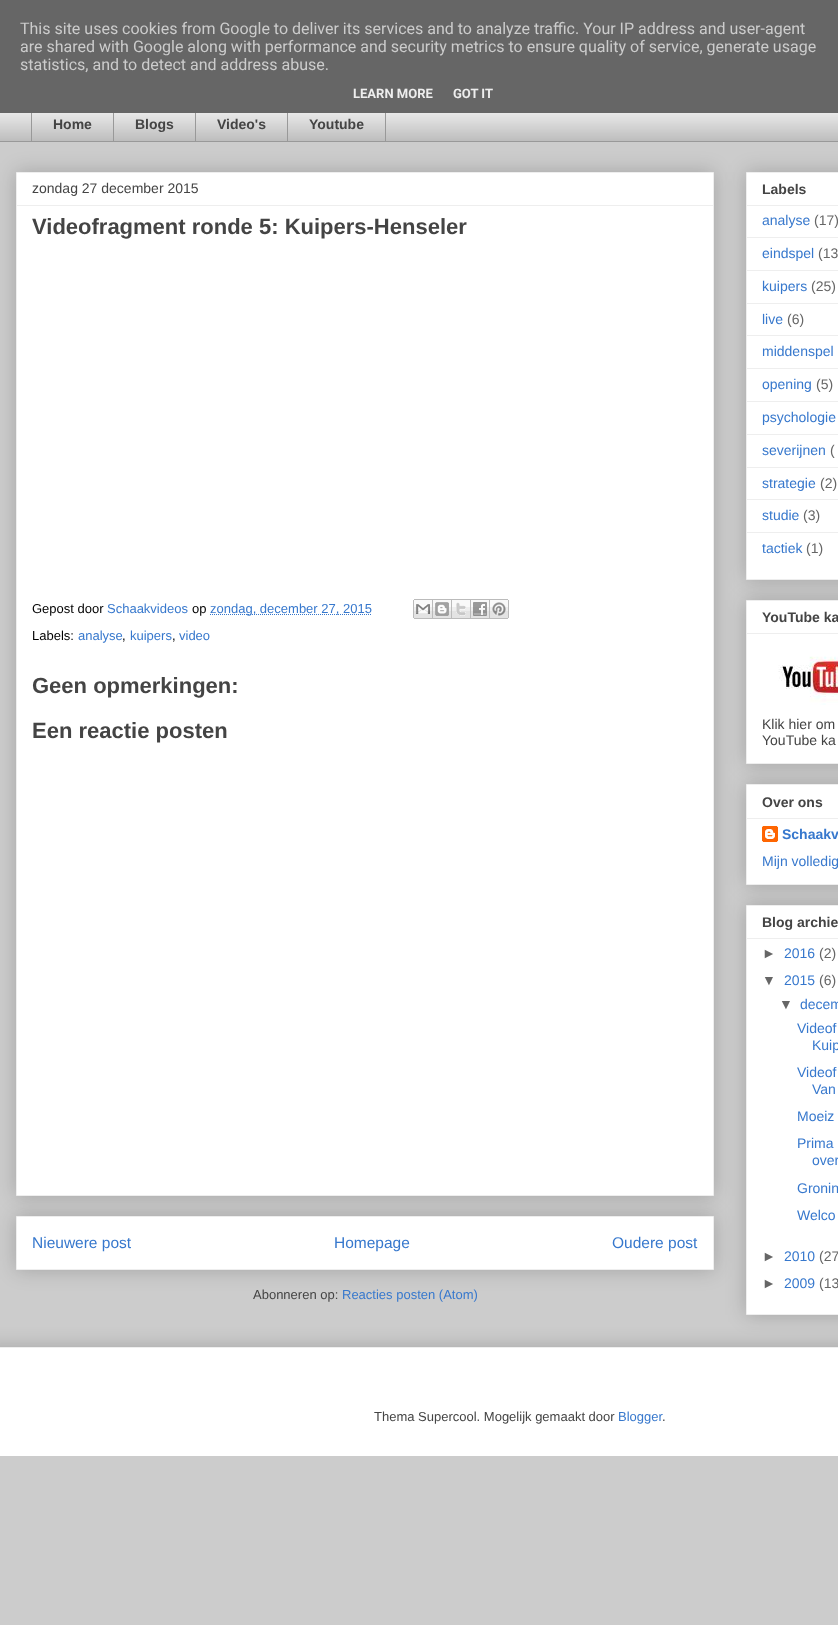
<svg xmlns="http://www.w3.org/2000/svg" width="838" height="1625">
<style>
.a{font:16px Roboto;fill:#ccc}
.b{font:bold 13px Roboto;fill:#eee}
.c{font:bold 14px Liberation Sans;fill:#444}
.d{font:14px Liberation Sans;fill:#444}
.e{font:bold 22px Liberation Sans;fill:#444}
.f{font:13px Liberation Sans;fill:#000}
.g{font:13px Liberation Sans;fill:#3778cd}
.h{font:15.5px Liberation Sans;fill:#3778cd}
.i{font:13px Liberation Sans;fill:#444}
.j{font:14px Liberation Sans;fill:#3778cd}
.k{font:14px Liberation Sans;fill:#666}
.l{font:bold 14px Liberation Sans;fill:#3778cd}
</style>
<defs>
<clipPath id="clip1"><path d="M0 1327h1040v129H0z"/></clipPath>
</defs>
<rect width="100%" height="100%" fill="#ccc"/>
<path fill="#eee" d="M0 113h838v28H0z"/>
<image href="1.png" x="0" y="113" width="838" height="28"/>
<path fill="#999" d="M31 107h1v35H31z"/>
<path fill="#999" d="M113 107h1v35H113z"/>
<path fill="#999" d="M195 107h1v35H195z"/>
<path fill="none" stroke="#999" d="M287.5 107.5h98v34H287.5z"/>
<path fill="#666" d="M0 0h838v113H0z"/>
<path fill="#999" d="M0 141h838v1H0z"/>
<path fill="#00000033" filter="blur(10px)" d="M16 1216h698v54H16z"/>
<path fill="#fff" stroke="#eee" d="M16.5 1216.5h697v53H16.5z"/>
<path fill="#00000033" filter="blur(10px)" d="M16 172h698v1024H16z"/>
<path fill="#fff" stroke="#eee" d="M16.5 172.5h697v1023H16.5z"/>
<path fill="#eee" d="M17 205h696v1H17z"/>
<path fill="none" stroke="#3778cd" stroke-dasharray="1 1" d="M210 614.5h161.5"/>
<image href="2.png" x="413" y="599" width="20" height="20"/>
<image href="3.png" x="433" y="599" width="19" height="20"/>
<image href="4.png" x="452" y="599" width="19" height="20"/>
<image href="5.png" x="471" y="599" width="19" height="20"/>
<image href="6.png" x="490" y="599" width="19" height="20"/>
<path fill="#00000033" filter="blur(10px)" d="M746 172h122v408H746z"/>
<path fill="#fff" stroke="#eee" d="M746.5 172.5h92v407H746.5z"/>
<path fill="#eee" d="M747 205h91v1H747z"/>
<path fill="#eee" d="M747 237h91v1H747z"/>
<path fill="#eee" d="M747 270h91v1H747z"/>
<path fill="#eee" d="M747 303h91v1H747z"/>
<path fill="#eee" d="M747 335h91v1H747z"/>
<path fill="#eee" d="M747 368h91v1H747z"/>
<path fill="#eee" d="M747 401h91v1H747z"/>
<path fill="#eee" d="M747 434h91v1H747z"/>
<path fill="#eee" d="M747 467h91v1H747z"/>
<path fill="#eee" d="M747 499h91v1H747z"/>
<path fill="#eee" d="M747 532h91v1H747z"/>
<path fill="#00000033" filter="blur(10px)" d="M746 600h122v164H746z"/>
<path fill="#fff" stroke="#eee" d="M746.5 600.5h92v163H746.5z"/>
<path fill="#eee" d="M747 633h91v1H747z"/>
<image href="7.png" x="778" y="656" width="60" height="49"/>
<path fill="#00000033" filter="blur(10px)" d="M746 784h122v101H746z"/>
<path fill="#fff" stroke="#eee" d="M746.5 784.5h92v100H746.5z"/>
<path fill="#eee" d="M747 818h91v1H747z"/>
<image href="8.png" x="762" y="826" width="16" height="16"/>
<path fill="#00000033" filter="blur(10px)" d="M746 905h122v410H746z"/>
<path fill="#fff" stroke="#eee" d="M746.5 905.5h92v409H746.5z"/>
<path fill="#eee" d="M747 938h91v1H747z"/>
<g clip-path="url(#clip1)">
<path fill="#00000033" filter="blur(10px)" d="M-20 1347h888v109H-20z"/>
</g>
<path fill="#fff" d="M0 1348h838v108H0z"/>
<path fill="#eee" d="M0 1347h838v1H0z"/>
<text class="a" x="20" y="34">This site uses cookies from Google to deliver its services and to analyze traffic. Your IP address and user-agent</text>
<text class="a" x="20" y="52">are shared with Google along with performance and security metrics to ensure quality of service, generate usage</text>
<text class="a" x="20" y="70">statistics, and to detect and address abuse.</text>
<text class="b" x="353" y="98">LEARN MORE</text>
<text class="b" x="453" y="98">GOT IT</text>
<text class="c" x="53" y="129">Home</text>
<text class="c" x="135" y="129">Blogs</text>
<text class="c" x="217" y="129">Video's</text>
<text class="c" x="309" y="129">Youtube</text>
<text class="d" x="32" y="193">zondag 27 december 2015</text>
<text class="e" x="32" y="234">Videofragment ronde 5: Kuipers-Henseler</text>
<text class="f" x="32" y="613">Gepost door</text>
<text class="g" x="107" y="613">Schaakvideos</text>
<text class="f" x="192" y="613">op</text>
<text class="g" x="210" y="613">zondag, december 27, 2015</text>
<text class="f" x="32" y="640">Labels:</text>
<text class="g" x="78" y="640">analyse</text>
<text class="f" x="122" y="640">,</text>
<text class="g" x="130" y="640">kuipers</text>
<text class="f" x="172" y="640">,</text>
<text class="g" x="179" y="640">video</text>
<text class="e" x="32" y="693">Geen opmerkingen:</text>
<text class="e" x="32" y="738">Een reactie posten</text>
<text class="h" x="32" y="1248">Nieuwere post</text>
<text class="h" x="334" y="1248">Homepage</text>
<text class="h" x="612" y="1248">Oudere post</text>
<text class="i" x="253" y="1299">Abonneren op:</text>
<text class="g" x="342" y="1299">Reacties posten (Atom)</text>
<text class="c" x="762" y="194">Labels</text>
<text class="j" x="762" y="225">analyse</text>
<text class="k" x="814" y="225">(17)</text>
<text class="j" x="762" y="258">eindspel</text>
<text class="k" x="818" y="258">(13</text>
<text class="j" x="762" y="291">kuipers</text>
<text class="k" x="811" y="291">(25)</text>
<text class="j" x="762" y="324">live</text>
<text class="k" x="787" y="324">(6)</text>
<text class="j" x="762" y="356">middenspel</text>
<text class="j" x="762" y="389">opening</text>
<text class="k" x="816" y="389">(5)</text>
<text class="j" x="762" y="422">psychologie</text>
<text class="j" x="762" y="455">severijnen</text>
<text class="k" x="830" y="455">(</text>
<text class="j" x="762" y="488">strategie</text>
<text class="k" x="820" y="488">(2)</text>
<text class="j" x="762" y="520">studie</text>
<text class="k" x="803" y="520">(3)</text>
<text class="j" x="762" y="553">tactiek</text>
<text class="k" x="806" y="553">(1)</text>
<text class="c" x="762" y="622">YouTube ka</text>
<text class="d" x="762" y="729">Klik hier om</text>
<text class="d" x="762" y="745">YouTube ka</text>
<text class="c" x="762" y="807">Over ons</text>
<text class="l" x="782" y="839">Schaakv</text>
<text class="j" x="762" y="866">Mijn volledig</text>
<text class="c" x="762" y="927">Blog archie</text>
<text class="k" x="762" y="958">►</text>
<text class="j" x="784" y="958">2016</text>
<text class="k" x="819" y="958">(2)</text>
<text class="k" x="762" y="985">▼</text>
<text class="j" x="784" y="985">2015</text>
<text class="k" x="819" y="985">(6)</text>
<text class="k" x="779" y="1009">▼</text>
<text class="j" x="800" y="1009">decem</text>
<text class="j" x="797" y="1033">Videof</text>
<text class="j" x="812" y="1050">Kuip</text>
<text class="j" x="797" y="1077">Videof</text>
<text class="j" x="812" y="1094">Van</text>
<text class="j" x="797" y="1121">Moeiz</text>
<text class="j" x="797" y="1148">Prima</text>
<text class="j" x="812" y="1165">over</text>
<text class="j" x="797" y="1193">Gronin</text>
<text class="j" x="797" y="1220">Welco</text>
<text class="k" x="762" y="1261">►</text>
<text class="j" x="784" y="1261">2010</text>
<text class="k" x="819" y="1261">(27</text>
<text class="k" x="762" y="1288">►</text>
<text class="j" x="784" y="1288">2009</text>
<text class="k" x="819" y="1288">(13</text>
<text class="i" x="374" y="1421">Thema Supercool. Mogelijk gemaakt door</text>
<text class="g" x="618" y="1421">Blogger</text>
<text class="i" x="662" y="1421">.</text>
</svg>
